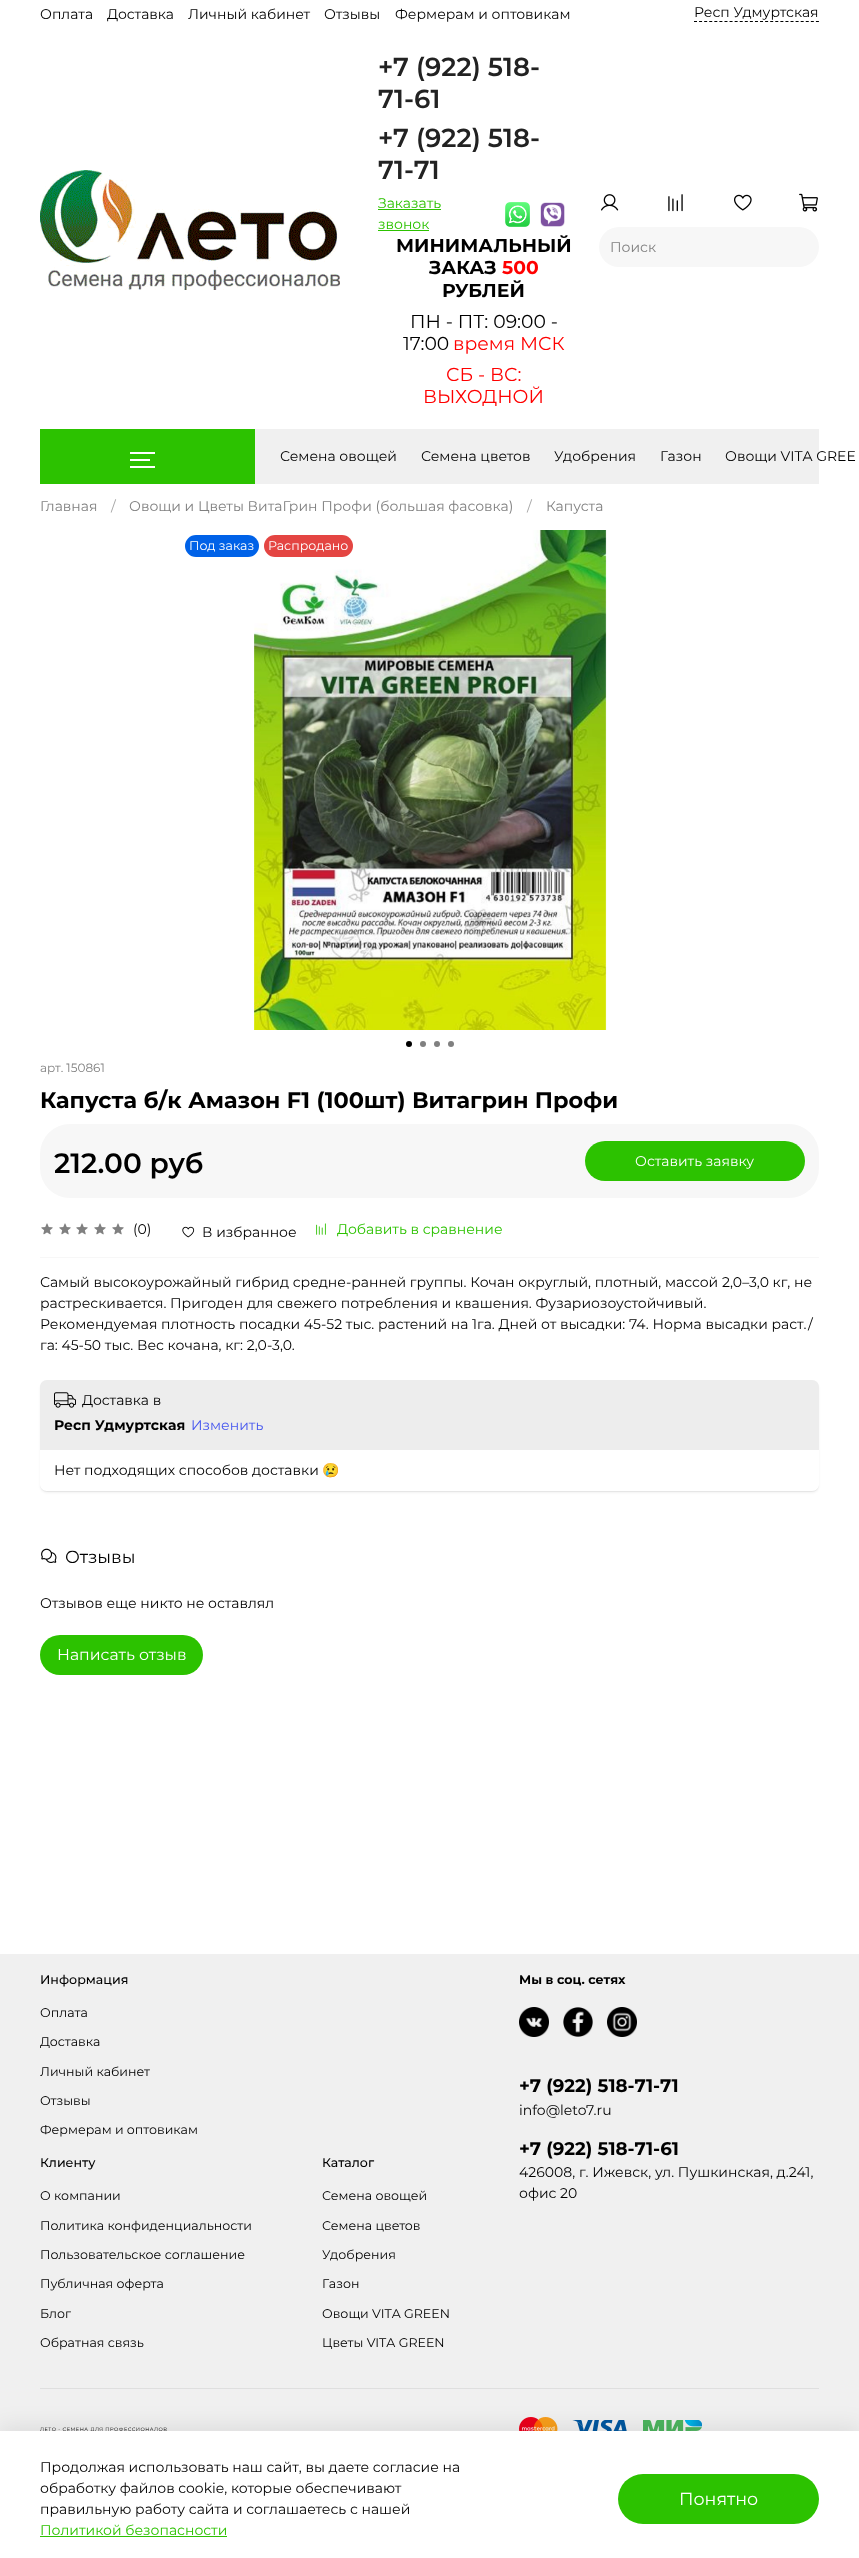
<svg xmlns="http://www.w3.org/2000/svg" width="859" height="2558">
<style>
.a{font:14px Montserrat;fill:#000}
.b{font:600 26px Montserrat;fill:#222}
.c{font:14px Montserrat;fill:#2cc200}
.d{font:bold 18.75px Montserrat;fill:#000}
.e{font:bold 18.75px Montserrat;fill:#f00}
.f{font:18.75px Montserrat;fill:#000}
.g{font:18.75px Montserrat;fill:#f00}
.h{font:14px Montserrat;fill:#808080}
.i{font:14px Montserrat;fill:#a6a6a6}
.j{font:12.6px Montserrat;fill:#fff}
.k{font:12px Montserrat;fill:#808080}
.l{font:bold 22.4px Montserrat;fill:#000}
.m{font:600 28px Montserrat;fill:#000}
.n{font:14px Montserrat;fill:#fff}
.o{font:bold 14px Montserrat;fill:#000}
.p{font:14px Montserrat;fill:#4657ef}
.q{font:14px Noto Color Emoji;fill:#000}
.r{font:17.5px Montserrat;fill:#000}
.s{font:15.75px Montserrat;fill:#fff}
.t{font:500 12.6px Montserrat;fill:#000}
.u{font:12.6px Montserrat;fill:#000}
.v{font:bold 12.6px Montserrat;fill:#000}
.w{font:bold 18.25px Montserrat;fill:#000}
.x{font:17.5px Montserrat;fill:#fff}
</style>
<defs>
<clipPath id="clip1"><path d="M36 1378h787v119h-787zm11 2h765c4 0 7 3 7 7v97c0 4-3 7-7 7h-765c-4 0-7-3-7-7v-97c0-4 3-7 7-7z" clip-rule="evenodd"/></clipPath>
<clipPath id="clip2"><path d="M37 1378h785v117h-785zm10 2h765c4 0 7 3 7 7v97c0 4-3 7-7 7h-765c-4 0-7-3-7-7v-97c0-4 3-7 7-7z" clip-rule="evenodd"/></clipPath>
</defs>
<rect width="100%" height="100%" fill="#fff"/>
<path fill="none" stroke="#000" stroke-dasharray="3 2.08" d="M694 21.5h125"/>
<image href="1.png" x="40" y="170" width="300" height="120"/>
<path fill="#2cc200" d="M378 209h63v1H378z"/>
<path fill="#2cc200" d="M378 230h51v1H378z"/>
<image href="2.png" x="505" y="202" width="25" height="25"/>
<image href="3.png" x="540" y="202" width="25" height="25"/>
<image href="4.png" x="601" y="194" width="18" height="17"/>
<image href="5.png" x="668" y="194" width="15" height="18"/>
<image href="6.png" x="734" y="194" width="18" height="17"/>
<image href="7.png" x="799" y="193" width="19" height="19"/>
<rect fill="#f7f7f7" x="599" y="227" width="220" height="40" rx="20"/>
<path fill="#f0f0f0" d="M255 429h564v55H255z"/>
<path fill="#2cc200" d="M40 429h215v55H40z"/>
<path fill="#fff" d="M130 452h25v2H130z"/>
<path fill="#fff" d="M130 459h20v2H130z"/>
<path fill="#fff" d="M130 466h25v2H130z"/>
<image href="8.png" x="254" y="530" width="353" height="500"/>
<circle fill="#000" cx="409" cy="1044" r="3"/>
<circle fill="#808080" cx="423" cy="1044" r="3"/>
<circle fill="#808080" cx="437" cy="1044" r="3"/>
<circle fill="#808080" cx="451" cy="1044" r="3"/>
<rect fill="#0062e8" x="185" y="535" width="74" height="22" rx="11"/>
<rect fill="#e44542" x="264" y="535" width="89" height="22" rx="11"/>
<rect fill="#f7f7f7" x="40" y="1124" width="779" height="74" rx="30"/>
<rect fill="#2cc200" x="585" y="1141" width="220" height="40" rx="20"/>
<path fill="#f7f7f7" d="M40 1257h779v1H40z"/>
<image href="9.png" x="41" y="1223" width="12" height="12"/>
<image href="9.png" x="59" y="1223" width="12" height="12"/>
<image href="9.png" x="76" y="1223" width="12" height="12"/>
<image href="9.png" x="94" y="1223" width="12" height="12"/>
<image href="9.png" x="112" y="1223" width="12" height="12"/>
<image href="10.png" x="182" y="1226" width="13" height="12"/>
<image href="11.png" x="316" y="1223" width="10" height="12"/>
<g clip-path="url(#clip1)">
<rect fill="#0000000d" filter="blur(1px)" x="40" y="1382" width="779" height="111" rx="7"/>
</g>
<g clip-path="url(#clip2)">
<rect fill="#0000000d" filter="blur(0.5px)" x="40" y="1381" width="779" height="111" rx="7"/>
</g>
<path fill="#ededed" d="M47 1380h765c4 0 7 3 7 7v63h-779v-63c0-4 3-7 7-7z"/>
<image href="12.png" x="54" y="1392" width="22" height="16"/>
<image href="13.png" x="41" y="1548" width="16" height="15"/>
<rect fill="#2cc200" x="40" y="1635" width="163" height="40" rx="20"/>
<path fill="#f0f0f0" d="M0 1954h859v477H0z"/>
<image href="14.png" x="519" y="2007" width="30" height="30"/>
<image href="15.png" x="563" y="2007" width="30" height="30"/>
<image href="16.png" x="607" y="2007" width="30" height="30"/>
<path fill="#dfdfdf" d="M40 2388h779v1H40z"/>
<image href="17.png" x="40" y="2427" width="127" height="4"/>
<image href="18.png" x="519" y="2417" width="39" height="14"/>
<image href="19.png" x="572" y="2420" width="55" height="11"/>
<image href="20.png" x="643" y="2420" width="59" height="11"/>
<path fill="#00000017" filter="blur(11.5px)" d="M-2 2428h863v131H-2z"/>
<path fill="#fff" d="M0 2431h859v127H0z"/>
<path fill="#2cc200" d="M40 2536h187v1H40z"/>
<rect fill="#2cc200" x="618" y="2474" width="201" height="50" rx="25"/>
<text class="a" x="40" y="19">Оплата</text>
<text class="a" x="107" y="19">Доставка</text>
<text class="a" x="188" y="19">Личный кабинет</text>
<text class="a" x="324" y="19">Отзывы</text>
<text class="a" x="395" y="19">Фермерам и оптовикам</text>
<text class="a" x="694" y="17">Респ Удмуртская</text>
<text class="b" x="378" y="76">+7 (922) 518-</text>
<text class="b" x="378" y="108">71-61</text>
<text class="b" x="378" y="147">+7 (922) 518-</text>
<text class="b" x="378" y="179">71-71</text>
<text class="c" x="378" y="208">Заказать</text>
<text class="c" x="378" y="229">звонок</text>
<text class="d" x="396" y="252">МИНИМАЛЬНЫЙ</text>
<text class="d" x="429" y="274">ЗАКАЗ</text>
<text class="e" x="502" y="274">500</text>
<text class="d" x="442" y="297">РУБЛЕЙ</text>
<text class="f" x="410" y="328">ПН - ПТ: 09:00 -</text>
<text class="f" x="403" y="350">17:00</text>
<text class="g" x="453" y="350">время МСК</text>
<text class="g" x="446" y="381">СБ - ВС:</text>
<text class="g" x="423" y="403">ВЫХОДНОЙ</text>
<text class="h" x="610" y="252">Поиск</text>
<text class="a" x="280" y="461">Семена овощей</text>
<text class="a" x="421" y="461">Семена цветов</text>
<text class="a" x="554" y="461">Удобрения</text>
<text class="a" x="660" y="461">Газон</text>
<text class="a" x="725" y="461">Овощи VITA GREE</text>
<text class="h" x="40" y="511">Главная</text>
<text class="i" x="111" y="511">/</text>
<text class="h" x="129" y="511">Овощи и Цветы ВитаГрин Профи (большая фасовка)</text>
<text class="i" x="527" y="511">/</text>
<text class="h" x="546" y="511">Капуста</text>
<text class="j" x="189" y="550">Под заказ</text>
<text class="j" x="268" y="550">Распродано</text>
<text class="k" x="40" y="1072">арт. 150861</text>
<text class="l" x="40" y="1108">Капуста б/к Амазон F1 (100шт) Витагрин Профи</text>
<text class="m" x="54" y="1173">212.00 руб</text>
<text class="n" x="635" y="1166">Оставить заявку</text>
<text class="a" x="133" y="1234">(0)</text>
<text class="a" x="202" y="1237">В избранное</text>
<text class="c" x="337" y="1234">Добавить в сравнение</text>
<text class="a" x="40" y="1287">Самый высокоурожайный гибрид средне-ранней группы. Кочан округлый, плотный, массой 2,0–3,0 кг, не</text>
<text class="a" x="40" y="1308">растрескивается. Пригоден для свежего потребления и квашения. Фузариозоустойчивый.</text>
<text class="a" x="40" y="1329">Рекомендуемая плотность посадки 45-52 тыс. растений на 1га. Дней от высадки: 74. Норма высадки раст./</text>
<text class="a" x="40" y="1350">га: 45-50 тыс. Вес кочана, кг: 2,0-3,0.</text>
<text class="a" x="82" y="1405">Доставка в</text>
<text class="o" x="54" y="1430">Респ Удмуртская</text>
<text class="p" x="191" y="1430">Изменить</text>
<text class="a" x="54" y="1475">Нет подходящих способов доставки</text>
<text class="q" x="322" y="1475">😢</text>
<text class="r" x="65" y="1563">Отзывы</text>
<text class="a" x="40" y="1608">Отзывов еще никто не оставлял</text>
<text class="s" x="57" y="1660">Написать отзыв</text>
<text class="t" x="40" y="1984">Информация</text>
<text class="u" x="40" y="2017">Оплата</text>
<text class="u" x="40" y="2046">Доставка</text>
<text class="u" x="40" y="2076">Личный кабинет</text>
<text class="u" x="40" y="2105">Отзывы</text>
<text class="u" x="40" y="2134">Фермерам и оптовикам</text>
<text class="t" x="40" y="2167">Клиенту</text>
<text class="u" x="40" y="2200">О компании</text>
<text class="u" x="40" y="2230">Политика конфиденциальности</text>
<text class="u" x="40" y="2259">Пользовательское соглашение</text>
<text class="u" x="40" y="2288">Публичная оферта</text>
<text class="u" x="40" y="2318">Блог</text>
<text class="u" x="40" y="2347">Обратная связь</text>
<text class="t" x="322" y="2167">Каталог</text>
<text class="u" x="322" y="2200">Семена овощей</text>
<text class="u" x="322" y="2230">Семена цветов</text>
<text class="u" x="322" y="2259">Удобрения</text>
<text class="u" x="322" y="2288">Газон</text>
<text class="u" x="322" y="2318">Овощи VITA GREEN</text>
<text class="u" x="322" y="2347">Цветы VITA GREEN</text>
<text class="v" x="519" y="1984">Мы в соц. сетях</text>
<text class="w" x="519" y="2092">+7 (922) 518-71-71</text>
<text class="a" x="519" y="2115">info@leto7.ru</text>
<text class="w" x="519" y="2155">+7 (922) 518-71-61</text>
<text class="a" x="519" y="2177">426008, г. Ижевск, ул. Пушкинская, д.241,</text>
<text class="a" x="519" y="2198">офис 20</text>
<text class="a" x="40" y="2472">Продолжая использовать наш сайт, вы даете согласие на</text>
<text class="a" x="40" y="2493">обработку файлов cookie, которые обеспечивают</text>
<text class="a" x="40" y="2514">правильную работу сайта и соглашаетесь с нашей</text>
<text class="c" x="40" y="2535">Политикой безопасности</text>
<text class="x" x="679" y="2505">Понятно</text>
</svg>
